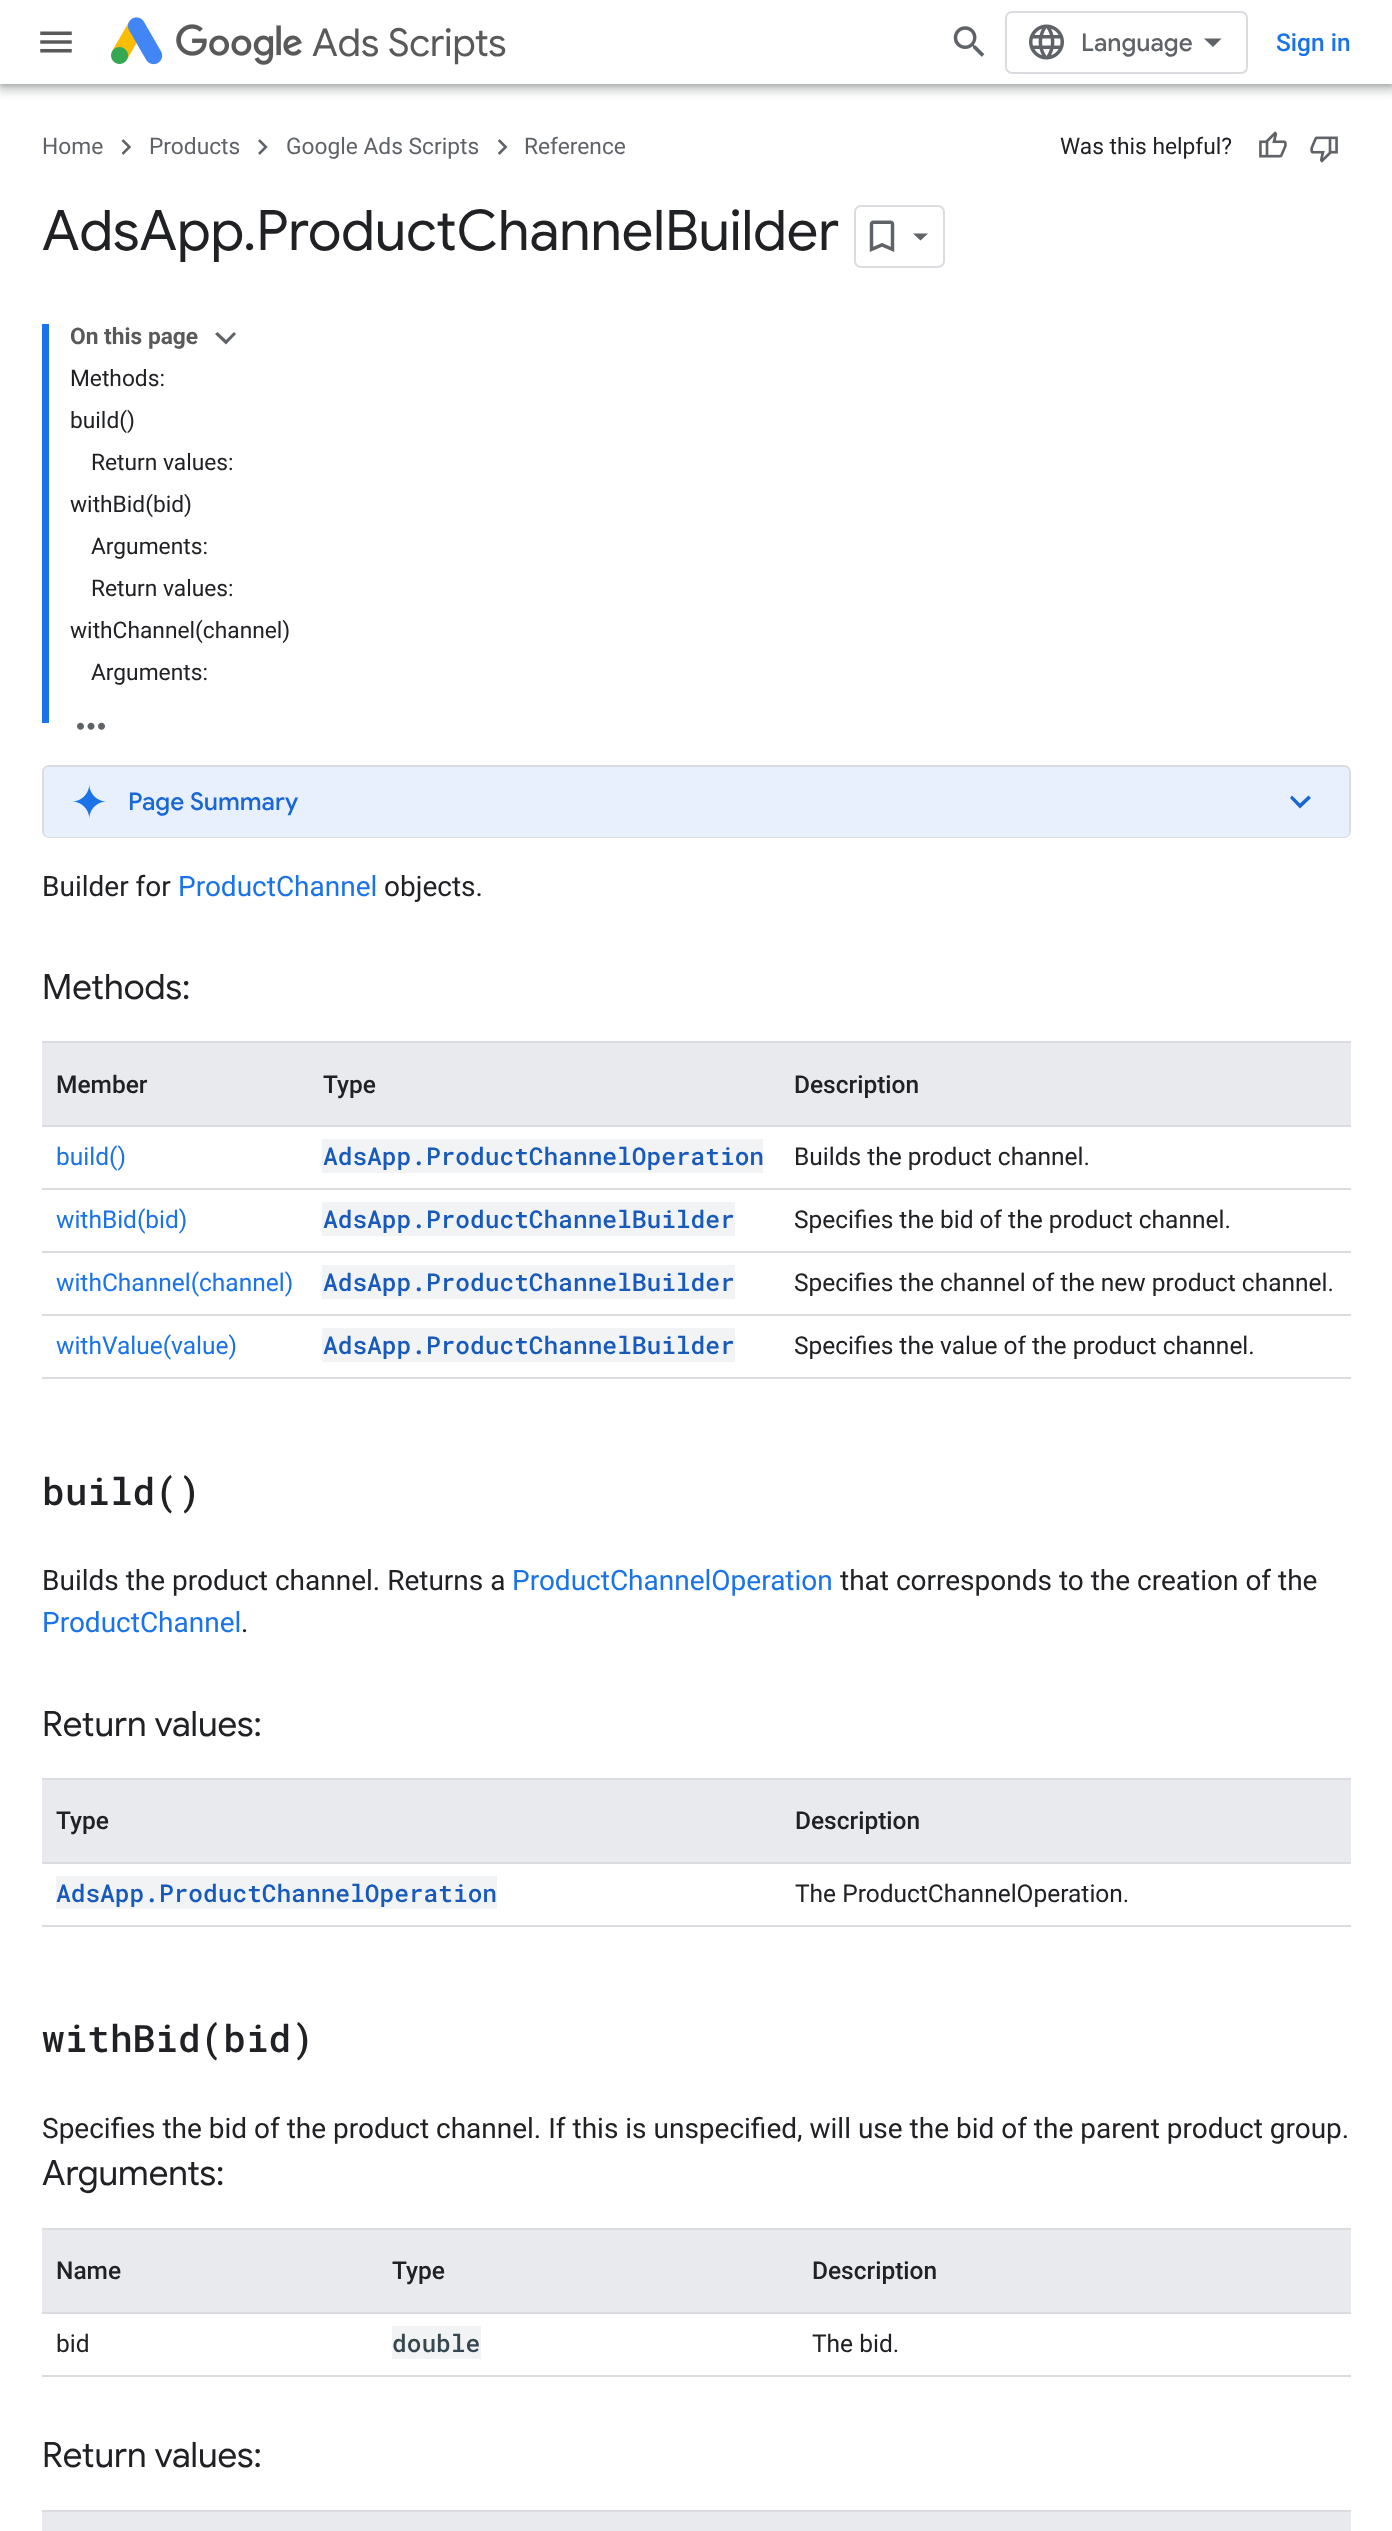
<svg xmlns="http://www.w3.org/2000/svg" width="1392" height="2531">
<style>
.a{font:38.5px Google Sans;fill:#595959}
.b{font:500 24.5px Google Sans;fill:#5f6368}
.c{font:500 24.5px Roboto;fill:#1a73e8}
.d{font:22.75px Roboto;fill:#5f6368}
.e{font:22.75px Roboto;fill:#202124}
.f{font:56px Google Sans;fill:#202124}
.g{font:bold 22.75px Roboto;fill:#595959}
.h{font:500 24.5px Google Sans;fill:#1967d2}
.i{font:28px Roboto;fill:#202124}
.j{font:28px Roboto;fill:#1a73e8}
.k{font:35px Google Sans;fill:#202124}
.l{font:500 24.5px Roboto;fill:#202124}
.m{font:24.5px Roboto;fill:#1a73e8}
.n{font:500 24.5px Roboto Mono;fill:#185abc}
.o{font:24.5px Roboto;fill:#202124}
.p{font:500 37.75px Roboto Mono;fill:#202124}
.q{font:500 24.5px Roboto Mono;fill:#37474f}
</style>
<rect width="100%" height="100%" fill="#fff"/>
<path fill="#3c404326" filter="blur(5px)" d="M-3 0h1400v91H-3z"/>
<path fill="#3c40434d" filter="blur(2px)" d="M0 2h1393v84H0z"/>
<path fill="#3c404326" filter="blur(5px)" d="M-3 84h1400v7H-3z"/>
<path fill="#fff" d="M0 0h1392v84H0z"/>
<image href="1.png" x="40" y="31" width="32" height="22"/>
<image href="2.png" x="111" y="17" width="52" height="48"/>
<image href="3.png" x="176" y="24" width="126" height="41"/>
<image href="4.png" x="953" y="26" width="32" height="31"/>
<rect fill="none" stroke="#dadce0" stroke-width="2" x="1006" y="12" width="241" height="61" rx="6"/>
<image href="5.png" x="1029" y="24" width="35" height="36"/>
<path fill="#5f6368" d="M1213 47l-9-8.5h17.5z"/>
<image href="6.png" x="121" y="139" width="11" height="16"/>
<image href="7.png" x="258" y="139" width="10" height="16"/>
<image href="8.png" x="497" y="139" width="11" height="16"/>
<image href="9.png" x="1259" y="131" width="28" height="27"/>
<image href="10.png" x="1310" y="136" width="28" height="27"/>
<rect fill="none" stroke="#dadce0" stroke-width="2" x="855" y="206" width="89" height="61" rx="6"/>
<image href="11.png" x="869" y="220" width="26" height="32"/>
<path fill="#5f6368" d="M913 233.5h15l-7.5 7z"/>
<path fill="#1a73e8" d="M42 324h7v399H42z"/>
<path fill="#5f6368" d="M234 332l2 2l-10 10.5l-11-10.5l2.5-2l8.5 8z"/>
<image href="12.png" x="77" y="722" width="28" height="8"/>
<rect fill="none" stroke="#dadce0" stroke-width="2" x="43" y="766" width="1307" height="71" rx="6"/>
<rect fill="#e8f0fe" x="44" y="767" width="1305" height="70" rx="5"/>
<image href="13.png" x="72" y="784" width="35" height="35"/>
<path fill="#1967d2" d="M1308.5 795.5l2.5 2.5l-11 10.5l-10-10.5l2-2.5l8 8z"/>
<path fill="#dadce0" d="M42 1041h1309v2H42z"/>
<path fill="#dadce0" d="M42 1125h1309v2H42z"/>
<path fill="#e8eaed" d="M42 1043h1309v82H42z"/>
<path fill="#dadce0" d="M42 1188h1309v2H42z"/>
<path fill="#f1f3f4" d="M322 1139h441v34H322z"/>
<path fill="#dadce0" d="M42 1251h1309v2H42z"/>
<path fill="#f1f3f4" d="M322 1202h413v34H322z"/>
<path fill="#dadce0" d="M42 1314h1309v2H42z"/>
<path fill="#f1f3f4" d="M322 1265h413v34H322z"/>
<path fill="#dadce0" d="M42 1377h1309v2H42z"/>
<path fill="#f1f3f4" d="M322 1328h413v34H322z"/>
<path fill="#dadce0" d="M42 1778h1309v2H42z"/>
<path fill="#dadce0" d="M42 1862h1309v2H42z"/>
<path fill="#e8eaed" d="M42 1780h1309v82H42z"/>
<path fill="#dadce0" d="M42 1925h1309v2H42z"/>
<path fill="#f1f3f4" d="M56 1876h441v33H56z"/>
<path fill="#dadce0" d="M42 2228h1309v2H42z"/>
<path fill="#dadce0" d="M42 2312h1309v2H42z"/>
<path fill="#e8eaed" d="M42 2230h1309v82H42z"/>
<path fill="#dadce0" d="M42 2375h1309v2H42z"/>
<path fill="#f1f3f4" d="M392 2326h89v33H392z"/>
<path fill="#dadce0" d="M42 2510h1309v2H42z"/>
<path fill="#e8eaed" d="M42 2512h1309v19H42z"/>
<text class="a" x="312" y="56">Ads Scripts</text>
<text class="b" x="1081" y="51">Language</text>
<text class="c" x="1276" y="51">Sign in</text>
<text class="d" x="42" y="154">Home</text>
<text class="d" x="149" y="154">Products</text>
<text class="d" x="286" y="154">Google Ads Scripts</text>
<text class="d" x="524" y="154">Reference</text>
<text class="e" x="1060" y="154">Was this helpful?</text>
<text class="f" x="42" y="250">AdsApp</text>
<text class="f" x="243" y="250">.ProductChannelBuilder</text>
<text class="g" x="70" y="344">On this page</text>
<text class="e" x="70" y="386">Methods:</text>
<text class="e" x="70" y="428">build()</text>
<text class="e" x="91" y="470">Return values:</text>
<text class="e" x="70" y="512">withBid(bid)</text>
<text class="e" x="91" y="554">Arguments:</text>
<text class="e" x="91" y="596">Return values:</text>
<text class="e" x="70" y="638">withChannel(channel)</text>
<text class="e" x="91" y="680">Arguments:</text>
<text class="h" x="128" y="810">Page Summary</text>
<text class="i" x="42" y="896">Builder for</text>
<text class="j" x="178" y="896">ProductChannel</text>
<text class="i" x="384" y="896">objects.</text>
<text class="k" x="42" y="999">Methods:</text>
<text class="l" x="56" y="1093">Member</text>
<text class="l" x="323" y="1093">Type</text>
<text class="l" x="794" y="1093">Description</text>
<text class="m" x="56" y="1165">build()</text>
<text class="n" x="323" y="1165">AdsApp.ProductChannelOperation</text>
<text class="o" x="794" y="1165">Builds the product channel.</text>
<text class="m" x="56" y="1228">withBid(bid)</text>
<text class="n" x="323" y="1228">AdsApp.ProductChannelBuilder</text>
<text class="o" x="794" y="1228">Specifies the bid of the product channel.</text>
<text class="m" x="56" y="1291">withChannel(channel)</text>
<text class="n" x="323" y="1291">AdsApp.ProductChannelBuilder</text>
<text class="o" x="794" y="1291">Specifies the channel of the new product channel.</text>
<text class="m" x="56" y="1354">withValue(value)</text>
<text class="n" x="323" y="1354">AdsApp.ProductChannelBuilder</text>
<text class="o" x="794" y="1354">Specifies the value of the product channel.</text>
<text class="p" x="42" y="1505">build()</text>
<text class="i" x="42" y="1590">Builds the product channel. Returns a</text>
<text class="j" x="512" y="1590">ProductChannelOperation</text>
<text class="i" x="840" y="1590">that corresponds to the creation of the</text>
<text class="j" x="42" y="1632">ProductChannel</text>
<text class="i" x="241" y="1632">.</text>
<text class="k" x="42" y="1736">Return values:</text>
<text class="l" x="56" y="1829">Type</text>
<text class="l" x="795" y="1829">Description</text>
<text class="n" x="56" y="1902">AdsApp.ProductChannelOperation</text>
<text class="o" x="795" y="1902">The ProductChannelOperation.</text>
<text class="p" x="42" y="2052">withBid(bid)</text>
<text class="i" x="42" y="2138">Specifies the bid of the product channel. If this is unspecified, will use the bid of the parent product group.</text>
<text class="k" x="42" y="2185">Arguments:</text>
<text class="l" x="56" y="2279">Name</text>
<text class="l" x="392" y="2279">Type</text>
<text class="l" x="812" y="2279">Description</text>
<text class="o" x="56" y="2352">bid</text>
<text class="q" x="392" y="2352">double</text>
<text class="o" x="812" y="2352">The bid.</text>
<text class="k" x="42" y="2467">Return values:</text>
</svg>
